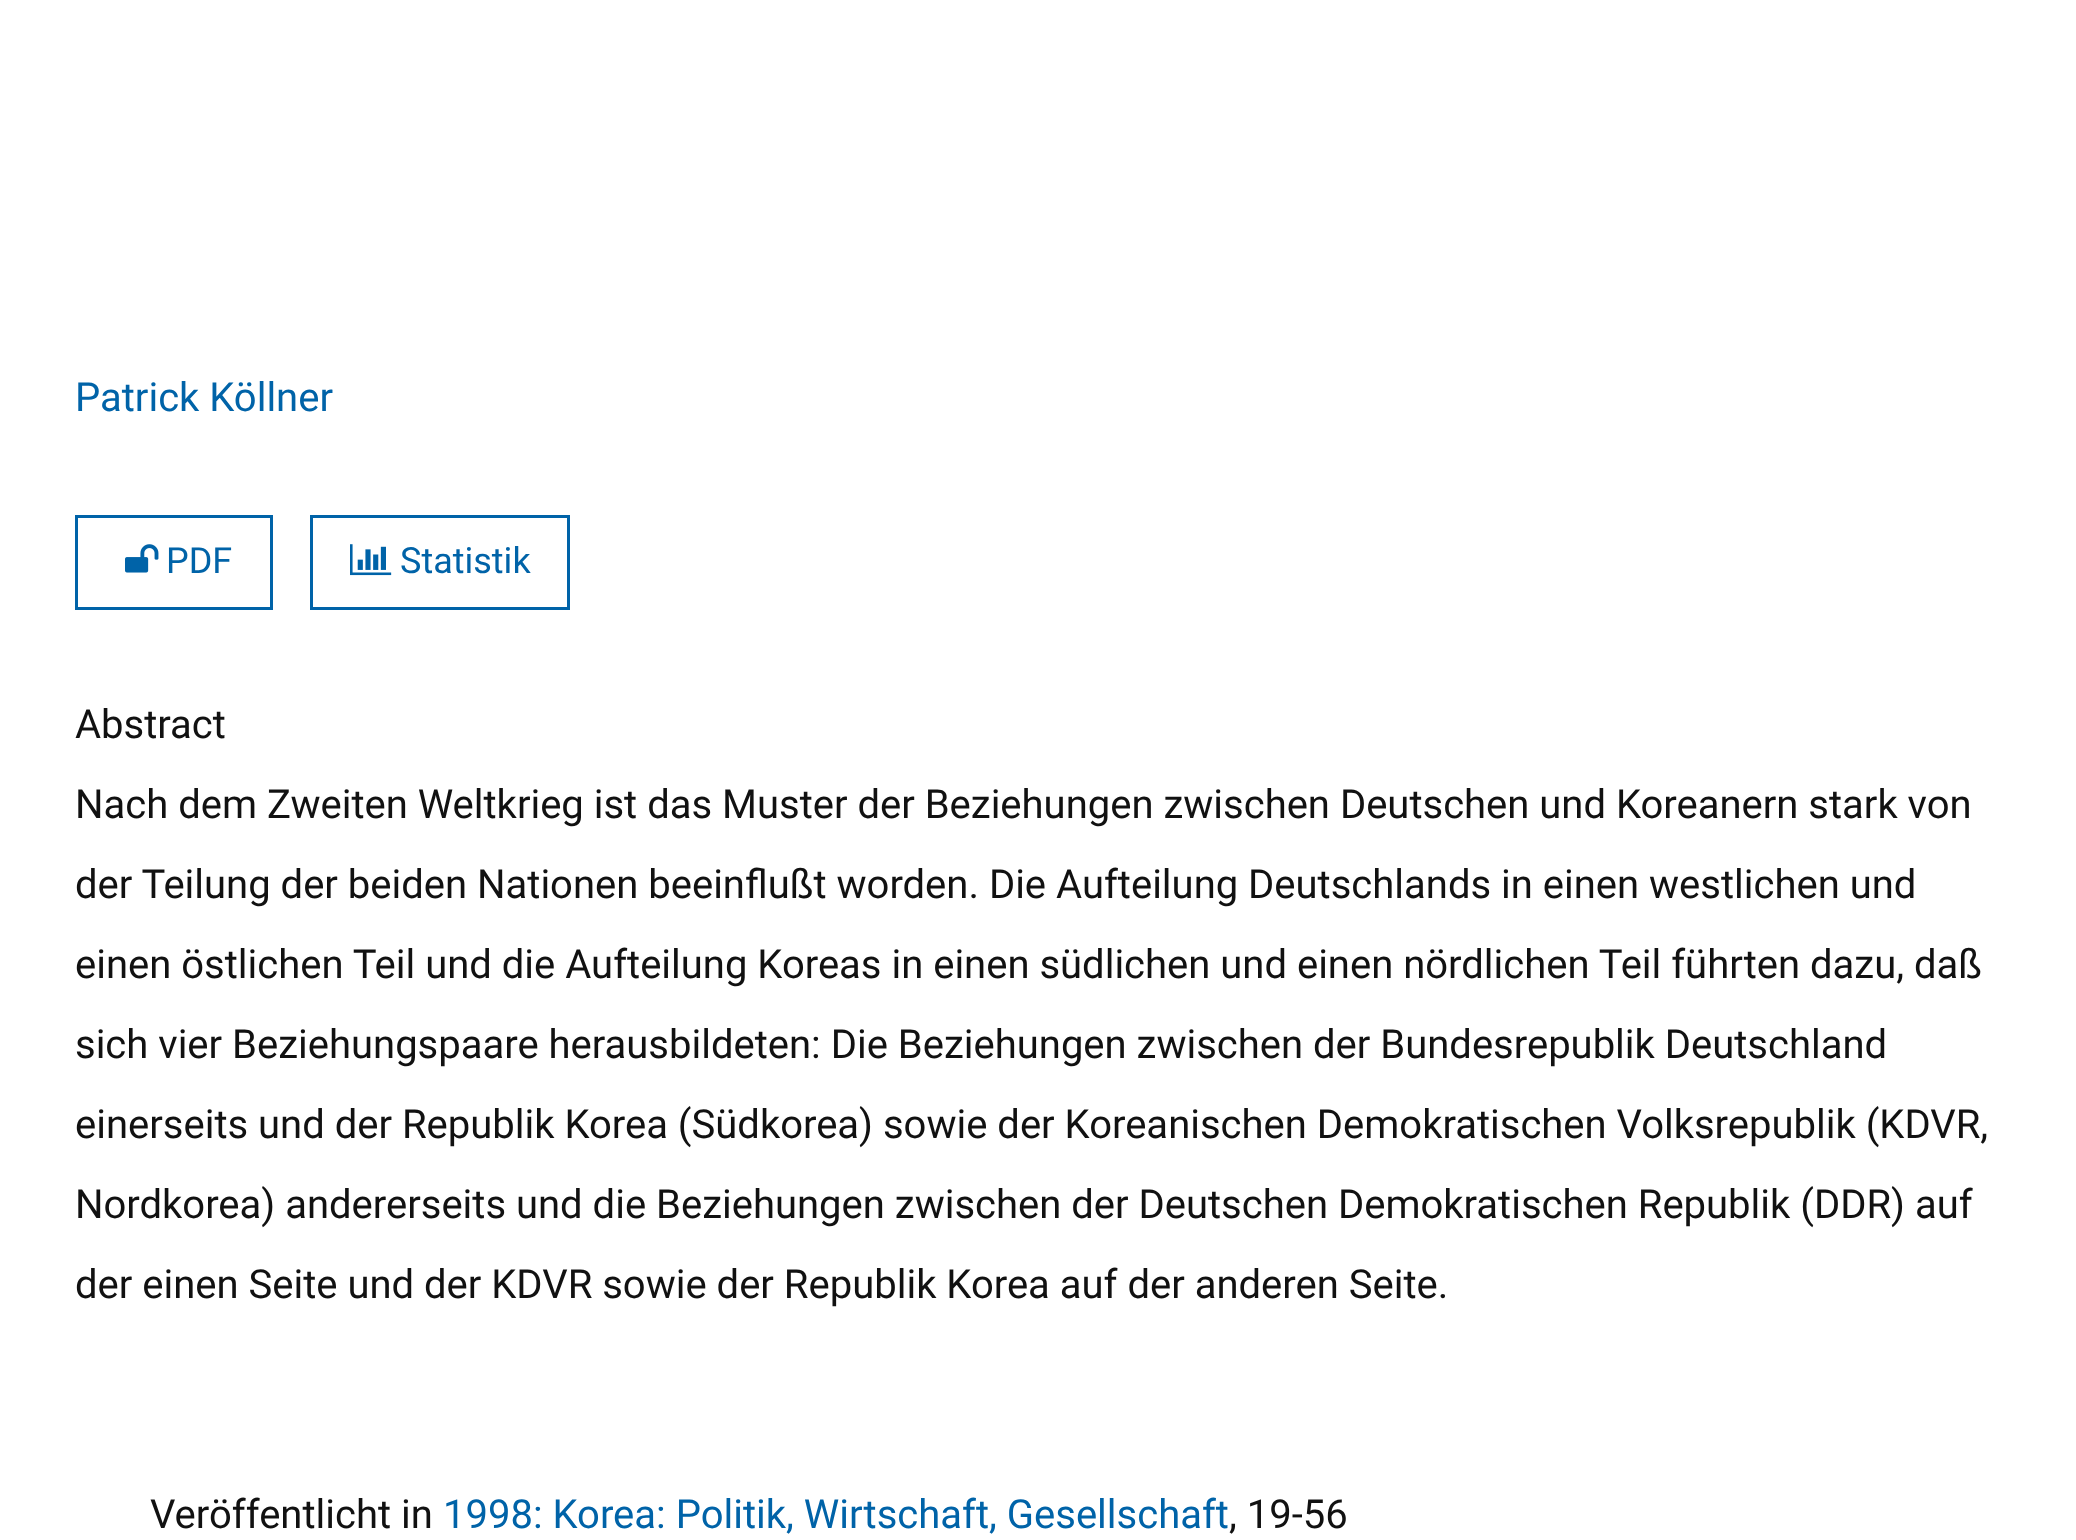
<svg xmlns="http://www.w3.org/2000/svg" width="2076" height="1540">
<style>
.a{font:40px Roboto;fill:#0063a8}
.b{font:36px Roboto;fill:#0063a8}
.c{font:40px Roboto;fill:#111}
</style>
<rect width="100%" height="100%" fill="#fff"/>
<path fill="none" stroke="#0063a8" stroke-width="3" d="M76.5 516.5h195v92H76.5z"/>
<image href="1.png" x="125" y="544" width="34" height="29"/>
<path fill="none" stroke="#0063a8" stroke-width="3" d="M311.5 516.5h257v92H311.5z"/>
<image href="2.png" x="350" y="544" width="42" height="32"/>
<text class="a" x="75" y="411">Patrick Köllner</text>
<text class="b" x="166" y="573">PDF</text>
<text class="b" x="400" y="573">Statistik</text>
<text class="c" x="75" y="738">Abstract</text>
<text class="c" x="75" y="818">Nach dem Zweiten Weltkrieg ist das Muster der Beziehungen zwischen Deutschen und Koreanern stark von</text>
<text class="c" x="75" y="898">der Teilung der beiden Nationen beeinflußt worden. Die Aufteilung Deutschlands in einen westlichen und</text>
<text class="c" x="75" y="978">einen östlichen Teil und die Aufteilung Koreas in einen südlichen und einen nördlichen Teil führten dazu, daß</text>
<text class="c" x="75" y="1058">sich vier Beziehungspaare herausbildeten: Die Beziehungen zwischen der Bundesrepublik Deutschland</text>
<text class="c" x="75" y="1138">einerseits und der Republik Korea (Südkorea) sowie der Koreanischen Demokratischen Volksrepublik (KDVR,</text>
<text class="c" x="75" y="1218">Nordkorea) andererseits und die Beziehungen zwischen der Deutschen Demokratischen Republik (DDR) auf</text>
<text class="c" x="75" y="1298">der einen Seite und der KDVR sowie der Republik Korea auf der anderen Seite.</text>
<text class="c" x="150" y="1528">Veröffentlicht in</text>
<text class="a" x="443" y="1528">1998: Korea: Politik, Wirtschaft, Gesellschaft</text>
<text class="c" x="1229" y="1528">, 19-56</text>
</svg>
